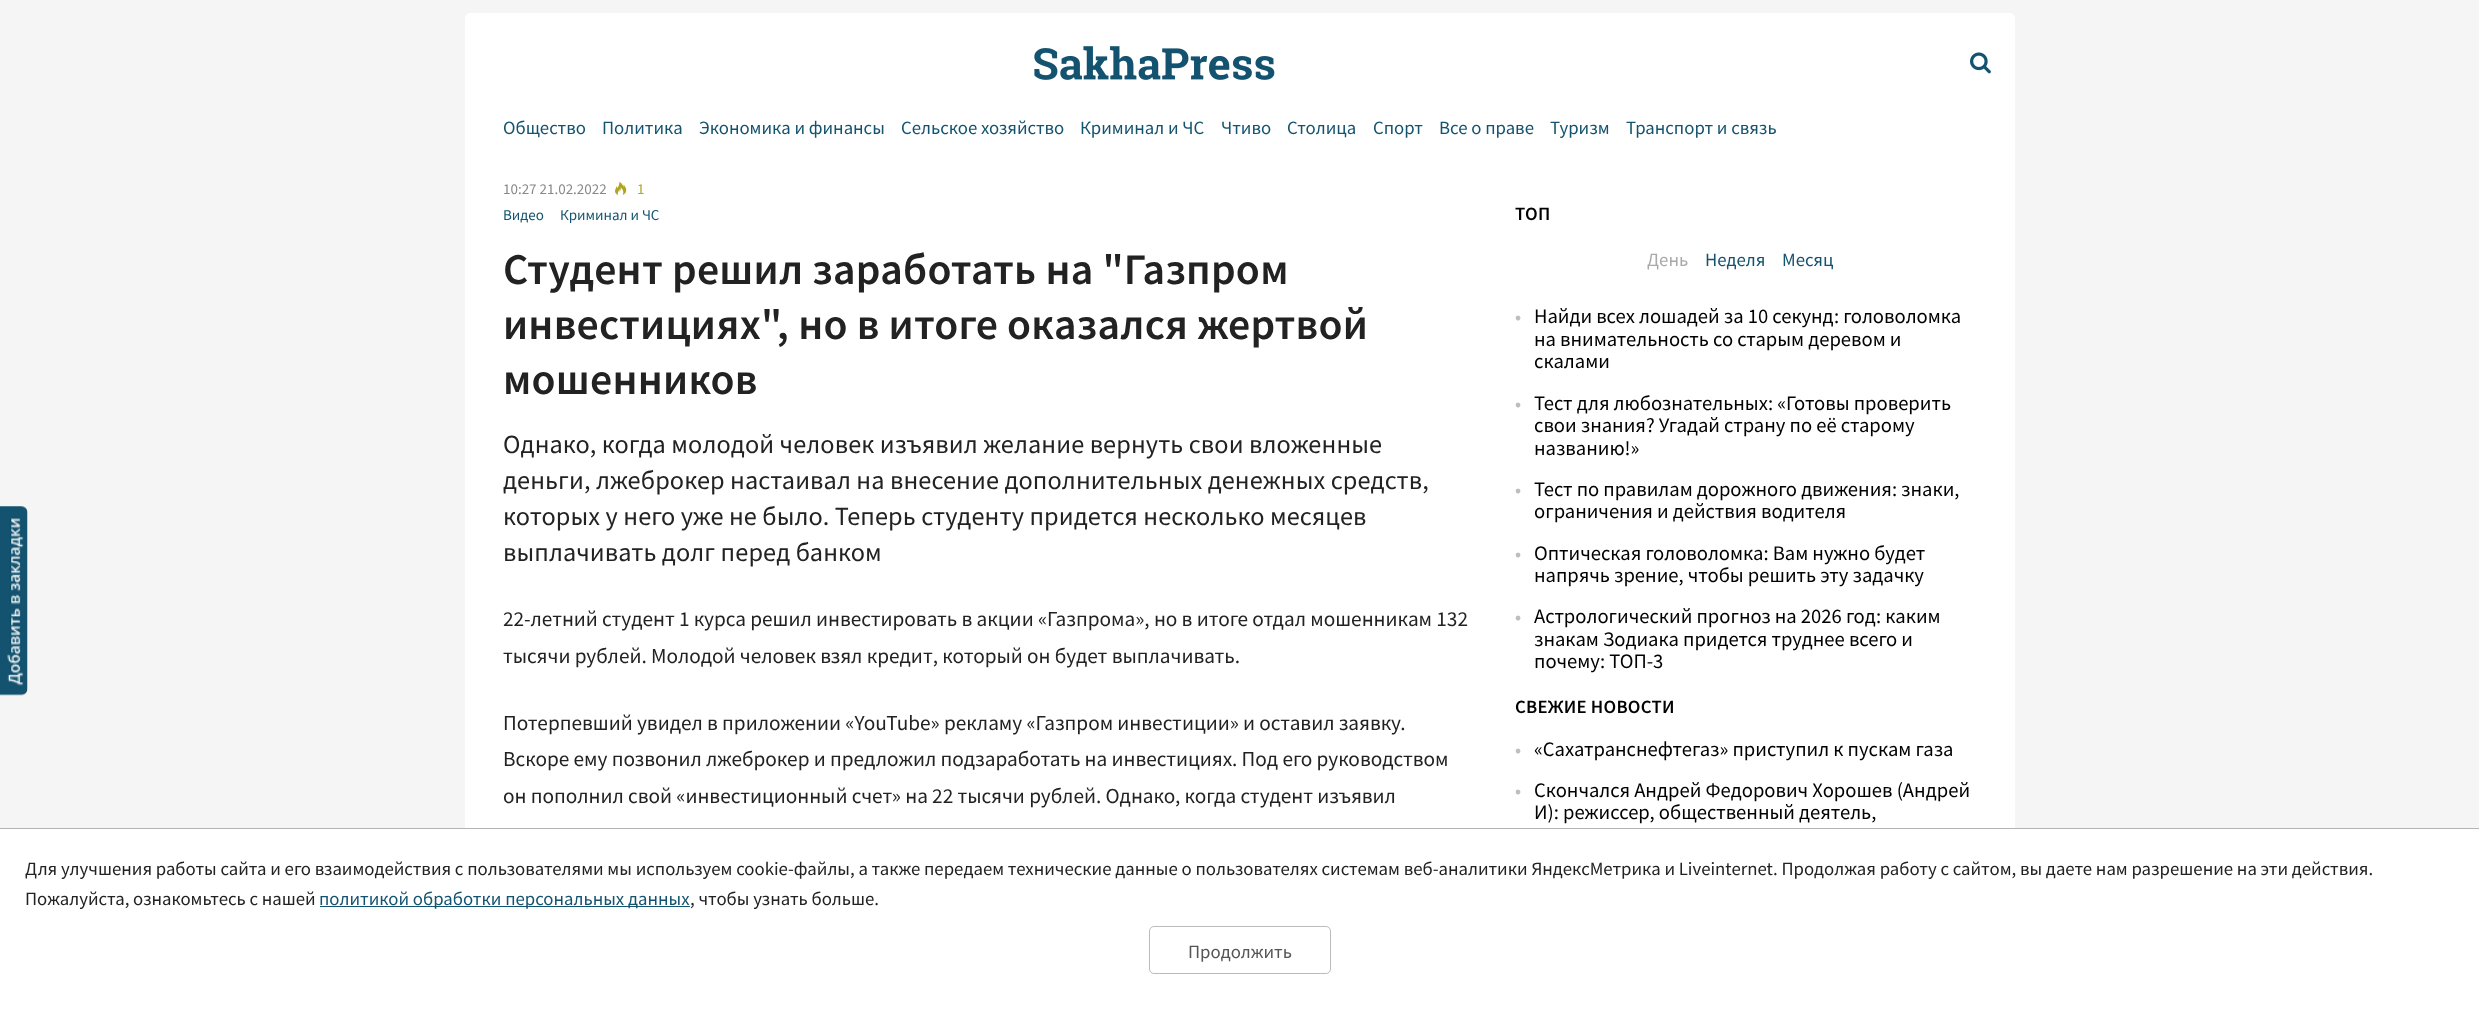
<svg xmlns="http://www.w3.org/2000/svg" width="2479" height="1011">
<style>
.a{font:18.75px Source Sans Pro;fill:#13536f}
.b{font:15px Source Sans Pro;fill:#888}
.c{font:15px Source Sans Pro;fill:#b0a422}
.d{font:15px Source Sans Pro;fill:#13536f}
.e{font:600 43.75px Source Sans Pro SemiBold;letter-spacing:0.25px;fill:#222}
.f{font:26.25px Source Sans Pro;letter-spacing:0.12px;fill:#222}
.g{font:21.25px Source Sans Pro;fill:#222}
.h{font:600 18.75px Source Sans Pro SemiBold;letter-spacing:0.25px;fill:#000}
.i{font:18.75px Source Sans Pro;fill:#aba8a8}
.j{font:600 18.75px Source Sans Pro SemiBold;fill:#bebebe}
.k{font:20.6px Source Sans Pro;fill:#000}
.l{font:18.75px Source Sans Pro;fill:#222}
.m{font:18.75px Source Sans Pro;fill:#555}
</style>
<rect width="100%" height="100%" fill="#f5f5f5"/>
<path fill="#fff" d="M471 13h1538c3.5 0 6 2.5 6 6v94h-1550v-94c0-3.5 2.5-6 6-6z"/>
<image href="1.png" x="1034" y="46" width="241" height="34"/>
<image href="2.png" x="1970" y="52" width="21" height="22"/>
<path fill="#fff" d="M465 113h1550v716H465z"/>
<image href="3.png" x="0" y="506" width="28" height="190"/>
<image href="4.png" x="615" y="181" width="12" height="15"/>
<path fill="#b5b3b5" filter="blur(0.5px)" d="M0 828h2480v182H0z"/>
<path fill="#fff" d="M0 829h2479v182H0z"/>
<path fill="#13536f" d="M320 906h370v1H320z"/>
<rect fill="none" stroke="#bbb" x="1149.5" y="926.5" width="181" height="47" rx="4.5"/>
<text class="a" x="503" y="134">Общество</text>
<text class="a" x="602" y="134">Политика</text>
<text class="a" x="699" y="134">Экономика и финансы</text>
<text class="a" x="901" y="134">Сельское хозяйство</text>
<text class="a" x="1080" y="134">Криминал и ЧС</text>
<text class="a" x="1221" y="134">Чтиво</text>
<text class="a" x="1287" y="134">Столица</text>
<text class="a" x="1373" y="134">Спорт</text>
<text class="a" x="1439" y="134">Все о праве</text>
<text class="a" x="1550" y="134">Туризм</text>
<text class="a" x="1626" y="134">Транспорт и связь</text>
<text class="b" x="503" y="194">10:27 21.02.2022</text>
<text class="c" x="637" y="194">1</text>
<text class="d" x="503" y="220">Видео</text>
<text class="d" x="560" y="220">Криминал и ЧС</text>
<text class="e" x="503" y="284">Студент решил заработать на "Газпром</text>
<text class="e" x="503" y="339">инвестициях", но в итоге оказался жертвой</text>
<text class="e" x="503" y="394">мошенников</text>
<text class="f" x="503" y="453">Однако, когда молодой человек изъявил желание вернуть свои вложенные</text>
<text class="f" x="503" y="489">деньги, лжеброкер настаивал на внесение дополнительных денежных средств,</text>
<text class="f" x="503" y="525">которых у него уже не было. Теперь студенту придется несколько месяцев</text>
<text class="f" x="503" y="561">выплачивать долг перед банком</text>
<text class="g" x="503" y="626">22-летний студент 1 курса решил инвестировать в акции «Газпрома», но в итоге отдал мошенникам 132</text>
<text class="g" x="503" y="663">тысячи рублей. Молодой человек взял кредит, который он будет выплачивать.</text>
<text class="g" x="503" y="730">Потерпевший увидел в приложении «YouTube» рекламу «Газпром инвестиции» и оставил заявку.</text>
<text class="g" x="503" y="766">Вскоре ему позвонил лжеброкер и предложил подзаработать на инвестициях. Под его руководством</text>
<text class="g" x="503" y="803">он пополнил свой «инвестиционный счет» на 22 тысячи рублей. Однако, когда студент изъявил</text>
<text class="h" x="1515" y="220">ТОП</text>
<text class="i" x="1647" y="266">День</text>
<text class="a" x="1705" y="266">Неделя</text>
<text class="a" x="1782" y="266">Месяц</text>
<text class="j" x="1515" y="323">•</text>
<text class="k" x="1534" y="323">Найди всех лошадей за 10 секунд: головоломка</text>
<text class="k" x="1534" y="346">на внимательность со старым деревом и</text>
<text class="k" x="1534" y="368">скалами</text>
<text class="j" x="1515" y="410">•</text>
<text class="k" x="1534" y="410">Тест для любознательных: «Готовы проверить</text>
<text class="k" x="1534" y="432">свои знания? Угадай страну по её старому</text>
<text class="k" x="1534" y="455">названию!»</text>
<text class="j" x="1515" y="496">•</text>
<text class="k" x="1534" y="496">Тест по правилам дорожного движения: знаки,</text>
<text class="k" x="1534" y="518">ограничения и действия водителя</text>
<text class="j" x="1515" y="560">•</text>
<text class="k" x="1534" y="560">Оптическая головоломка: Вам нужно будет</text>
<text class="k" x="1534" y="582">напрячь зрение, чтобы решить эту задачку</text>
<text class="j" x="1515" y="623">•</text>
<text class="k" x="1534" y="623">Астрологический прогноз на 2026 год: каким</text>
<text class="k" x="1534" y="646">знакам Зодиака придется труднее всего и</text>
<text class="k" x="1534" y="668">почему: ТОП-3</text>
<text class="h" x="1515" y="713">СВЕЖИЕ НОВОСТИ</text>
<text class="j" x="1515" y="756">•</text>
<text class="k" x="1534" y="756">«Сахатранснефтегаз» приступил к пускам газа</text>
<text class="j" x="1515" y="797">•</text>
<text class="k" x="1534" y="797">Скончался Андрей Федорович Хорошев (Андрей</text>
<text class="k" x="1534" y="819">И): режиссер, общественный деятель,</text>
<text class="l" x="25" y="875">Для улучшения работы сайта и его взаимодействия с пользователями мы используем cookie-файлы, а также передаем технические данные о пользователях системам веб-аналитики ЯндексМетрика и Liveinternet. Продолжая работу с сайтом, вы даете нам разрешение на эти действия.</text>
<text class="l" x="25" y="905">Пожалуйста, ознакомьтесь с нашей</text>
<text class="a" x="319" y="905">политикой обработки персональных данных</text>
<text class="l" x="690" y="905">, чтобы узнать больше.</text>
<text class="m" x="1188" y="958">Продолжить</text>
</svg>
